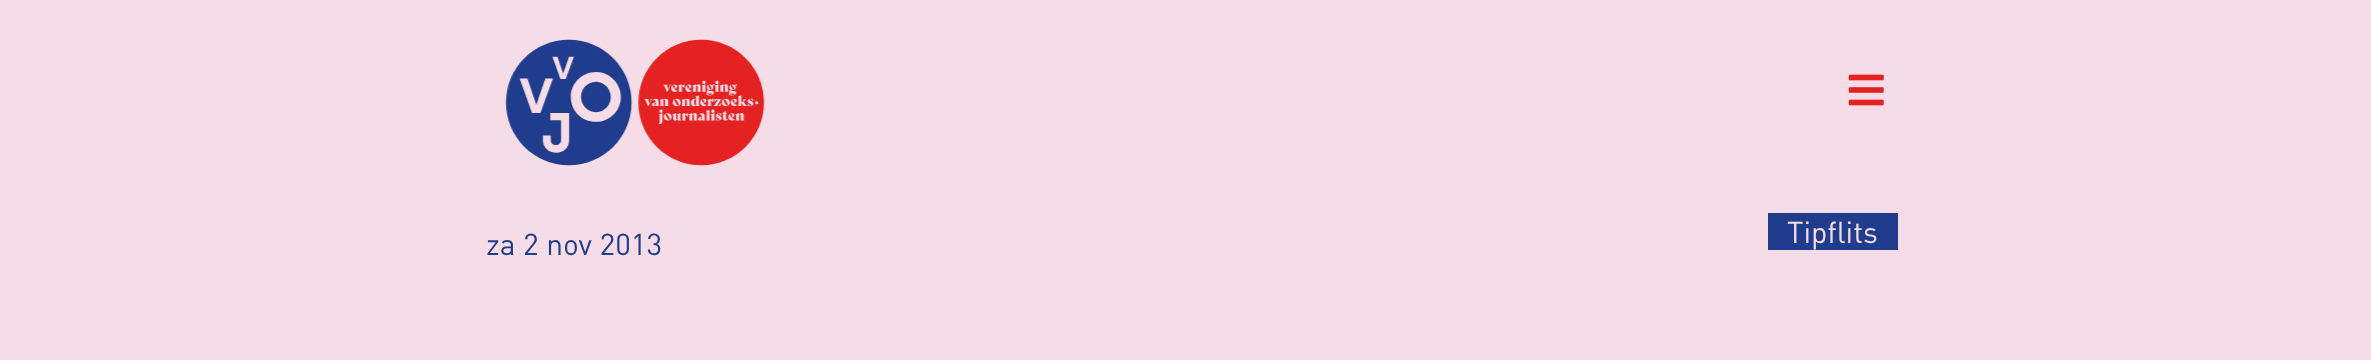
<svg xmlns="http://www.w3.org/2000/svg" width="2371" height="360">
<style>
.a{font:30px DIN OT;fill:#203d8d}
.b{font:30px DIN OT;fill:#f5dce6}
</style>
<rect width="100%" height="100%" fill="#f5dce6"/>
<image href="1.png" x="505" y="39" width="260" height="127"/>
<image href="2.png" x="1848" y="74" width="36" height="32"/>
<path fill="#203d8d" d="M1768 213h130v37H1768z"/>
<text class="a" x="486" y="255">za 2 nov 2013</text>
<text class="b" x="1787" y="243">Tipflits</text>
</svg>
